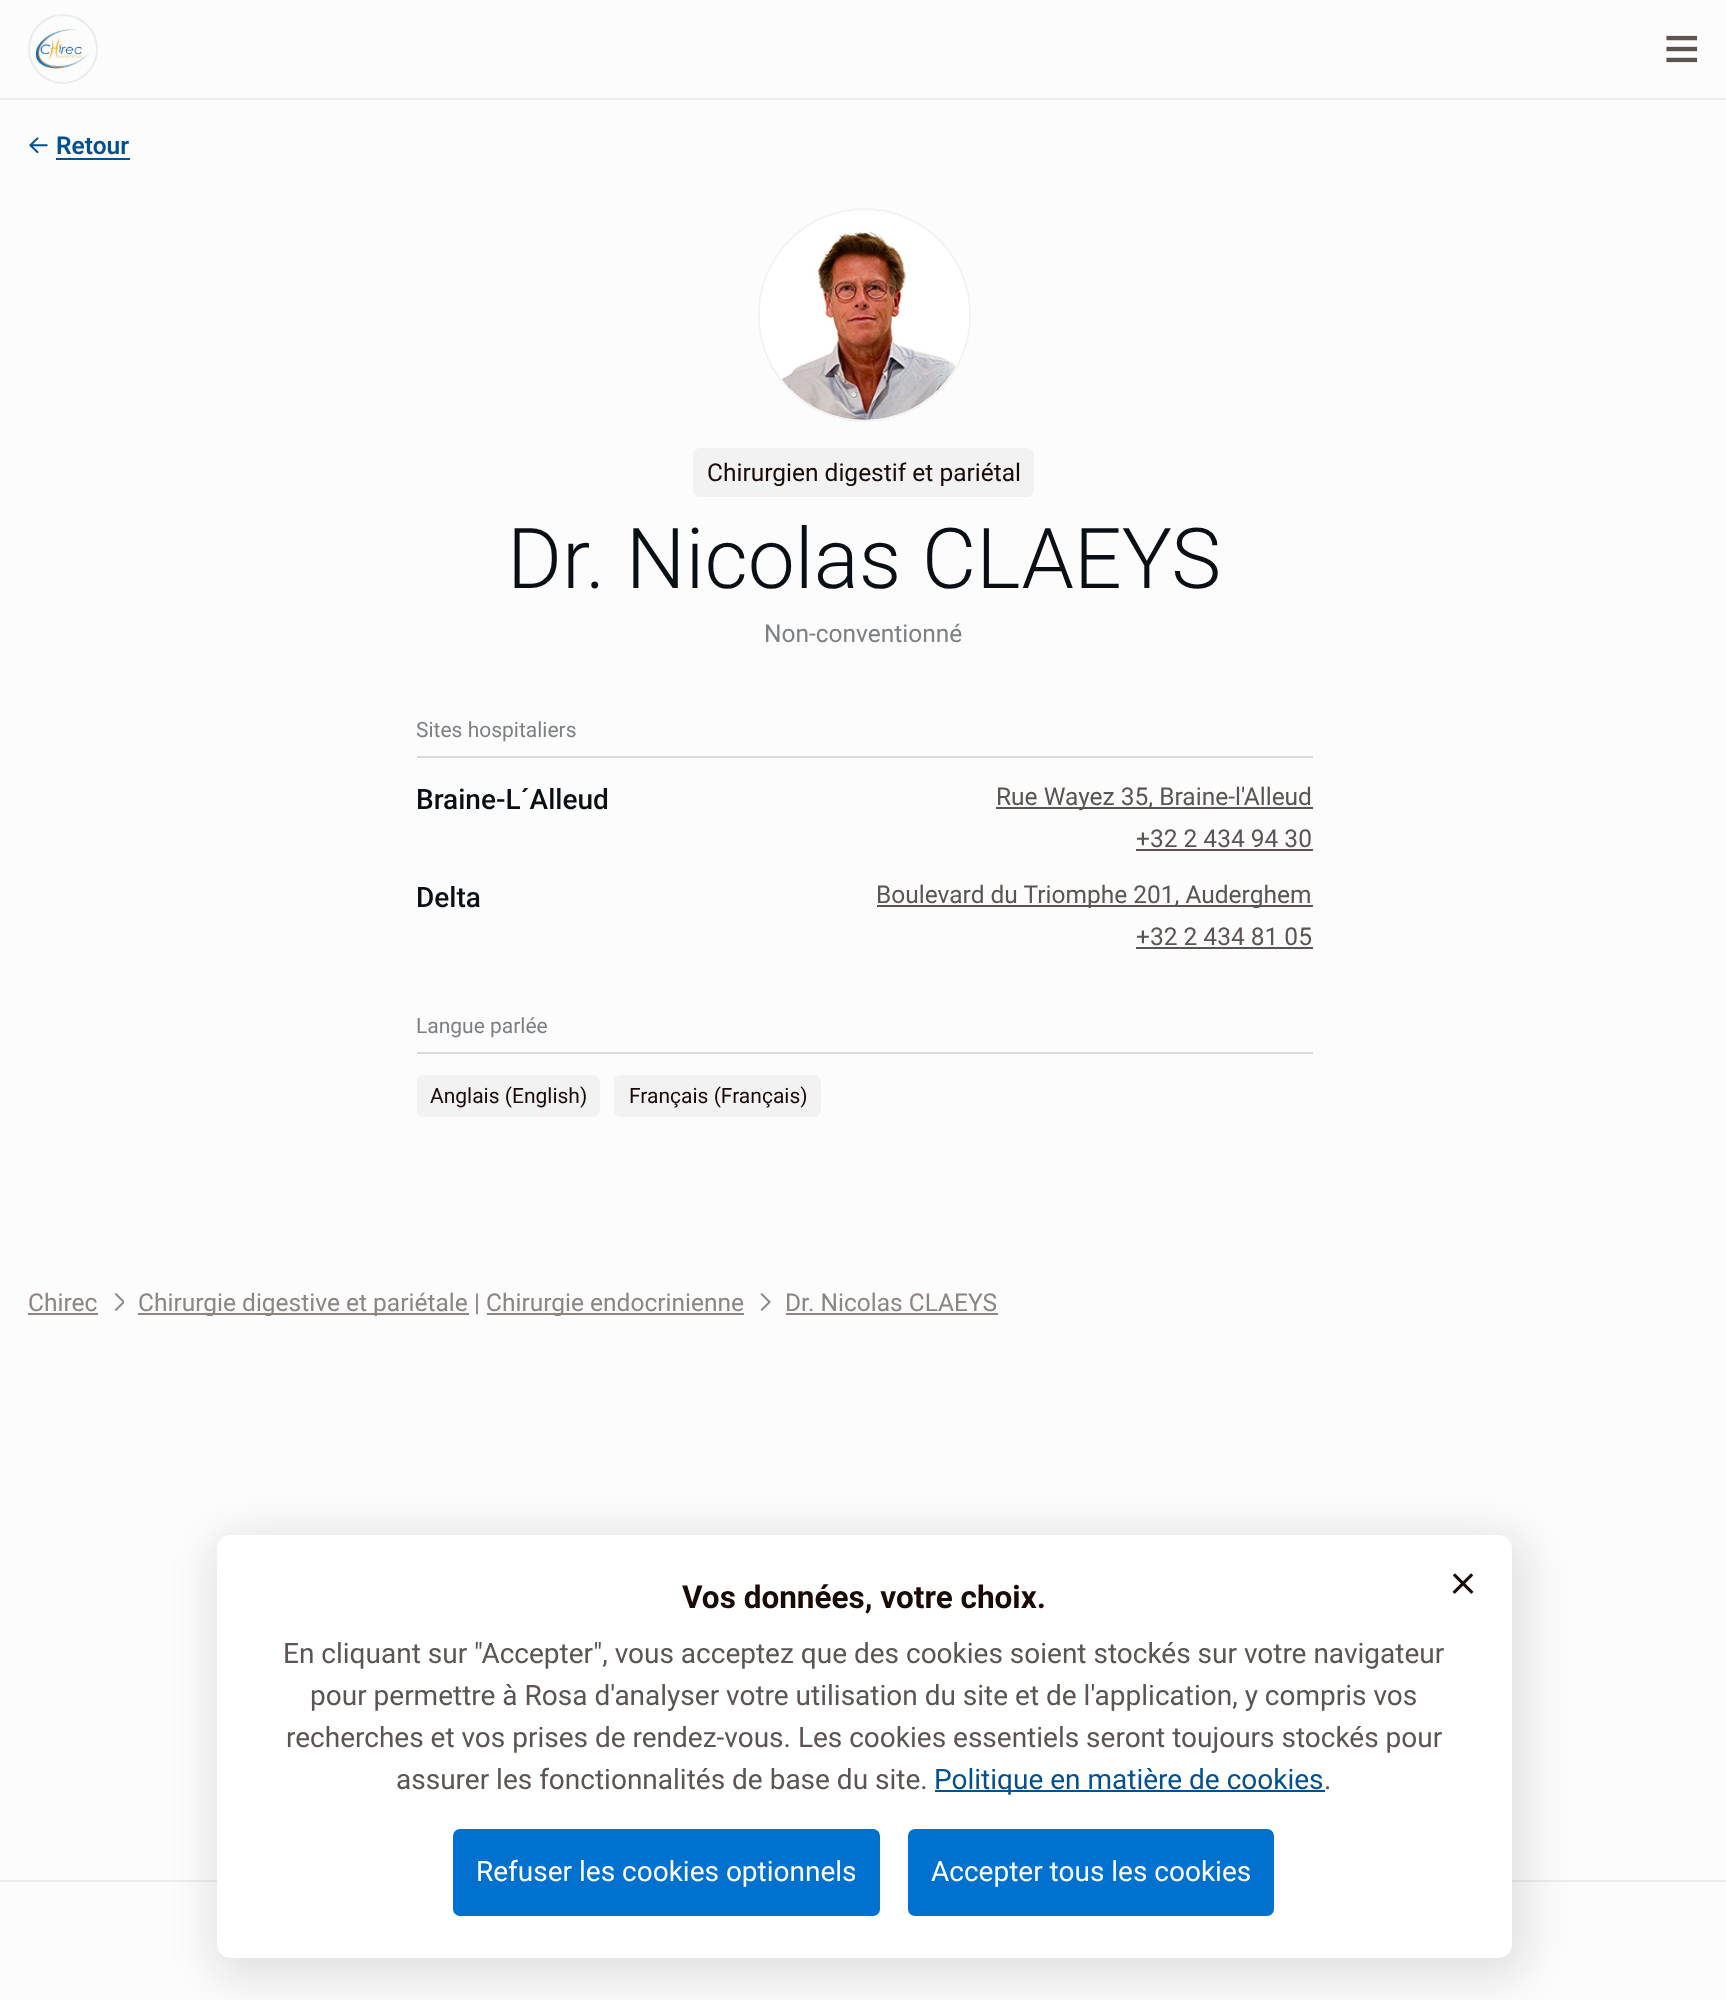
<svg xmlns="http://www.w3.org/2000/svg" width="1726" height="2000">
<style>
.a{font:600 24.5px Roboto;fill:#005092}
.b{font:24.5px Roboto;fill:#1a0a05}
.c{font:300 84px Roboto;fill:#090f15}
.d{font:24.5px Roboto;fill:#7c7f83}
.e{font:21px Roboto;fill:#7c7f83}
.f{font:500 28px Roboto;fill:#090f15}
.g{font:24.5px Roboto;fill:#5b5452}
.h{font:21px Roboto;fill:#1a0a05}
.i{font:24.5px Roboto;fill:#8c8582}
.j{font:bold 31.5px Roboto;fill:#1a0a05}
.k{font:28px Roboto;fill:#5b5452}
.l{font:28px Roboto;fill:#005092}
.m{font:28px Roboto;fill:#fff}
</style>
<rect width="100%" height="100%" fill="#fcfcfc"/>
<path fill="#edeceb" d="M0 98h1726v2H0z"/>
<circle fill="none" stroke="#edeceb" stroke-width="2" cx="63" cy="49" r="34"/>
<image href="1.png" x="35" y="29" width="54" height="40"/>
<image href="2.png" x="1666" y="35" width="32" height="28"/>
<image href="3.png" x="29" y="137" width="19" height="17"/>
<path fill="#005092" d="M56 158h74v2H56z"/>
<rect fill="none" stroke="#f2f2f2" stroke-width="2" x="759" y="209" width="211" height="212" rx="105.5"/>
<image href="4.png" x="760" y="215" width="209" height="205"/>
<rect fill="#f2f2f2" x="693" y="448" width="341" height="49" rx="7"/>
<path fill="#d7d9db" d="M417 756h896v2H417z"/>
<path fill="#5b5452" d="M996 807h317v2H996z"/>
<path fill="#5b5452" d="M1136 849h177v2H1136z"/>
<path fill="#5b5452" d="M877 905h436v2H877z"/>
<path fill="#5b5452" d="M1136 947h177v2H1136z"/>
<path fill="#d7d9db" d="M417 1052h896v2H417z"/>
<rect fill="#f2f2f2" x="417" y="1075" width="183" height="42" rx="7"/>
<rect fill="#f2f2f2" x="614" y="1075" width="207" height="42" rx="7"/>
<path fill="#8c8582" d="M28 1313h70v2H28z"/>
<image href="5.png" x="115" y="1293" width="9" height="18"/>
<path fill="#8c8582" d="M138 1313h331v2H138z"/>
<path fill="#8c8582" d="M487 1313h257v2H487z"/>
<image href="6.png" x="760" y="1293" width="11" height="18"/>
<path fill="#8c8582" d="M786 1313h212v2H786z"/>
<path fill="#edeceb" d="M0 1880h1726v2H0z"/>
<rect fill="#1a0a051c" filter="blur(21px)" x="212" y="1535" width="1316" height="444" rx="25"/>
<rect fill="#fff" x="217" y="1535" width="1295" height="423" rx="14"/>
<path fill="#005092" d="M935 1790h390v2H935z"/>
<image href="7.png" x="1452" y="1573" width="22" height="21"/>
<rect fill="#0071ce" stroke="#0071ce" stroke-width="2" x="454" y="1830" width="425" height="85" rx="6"/>
<rect fill="#0071ce" stroke="#0071ce" stroke-width="2" x="909" y="1830" width="364" height="85" rx="6"/>
<text class="a" x="56" y="154">Retour</text>
<text class="b" x="707" y="481">Chirurgien digestif et pariétal</text>
<text class="c" x="507" y="588">Dr. Nicolas CLAEYS</text>
<text class="d" x="764" y="642">Non-conventionné</text>
<text class="e" x="416" y="737">Sites hospitaliers</text>
<text class="f" x="416" y="809">Braine-L´Alleud</text>
<text class="g" x="996" y="805">Rue Wayez 35, Braine-l'Alleud</text>
<text class="g" x="1136" y="847">+32 2 434 94 30</text>
<text class="f" x="416" y="907">Delta</text>
<text class="g" x="876" y="903">Boulevard du Triomphe 201, Auderghem</text>
<text class="g" x="1136" y="945">+32 2 434 81 05</text>
<text class="e" x="416" y="1033">Langue parlée</text>
<text class="h" x="430" y="1103">Anglais (English)</text>
<text class="h" x="629" y="1103">Français (Français)</text>
<text class="i" x="28" y="1311">Chirec</text>
<text class="i" x="138" y="1311">Chirurgie digestive et pariétale</text>
<text class="i" x="474" y="1311">|</text>
<text class="i" x="486" y="1311">Chirurgie endocrinienne</text>
<text class="i" x="785" y="1311">Dr. Nicolas CLAEYS</text>
<text class="j" x="682" y="1608">Vos données, votre choix.</text>
<text class="k" x="283" y="1663">En cliquant sur "Accepter", vous acceptez que des cookies soient stockés sur votre navigateur</text>
<text class="k" x="310" y="1705">pour permettre à Rosa d'analyser votre utilisation du site et de l'application, y compris vos</text>
<text class="k" x="286" y="1747">recherches et vos prises de rendez-vous. Les cookies essentiels seront toujours stockés pour</text>
<text class="k" x="396" y="1789">assurer les fonctionnalités de base du site.</text>
<text class="l" x="934" y="1789">Politique en matière de cookies</text>
<text class="k" x="1324" y="1789">.</text>
<text class="m" x="476" y="1881">Refuser les cookies optionnels</text>
<text class="m" x="931" y="1881">Accepter tous les cookies</text>
</svg>
